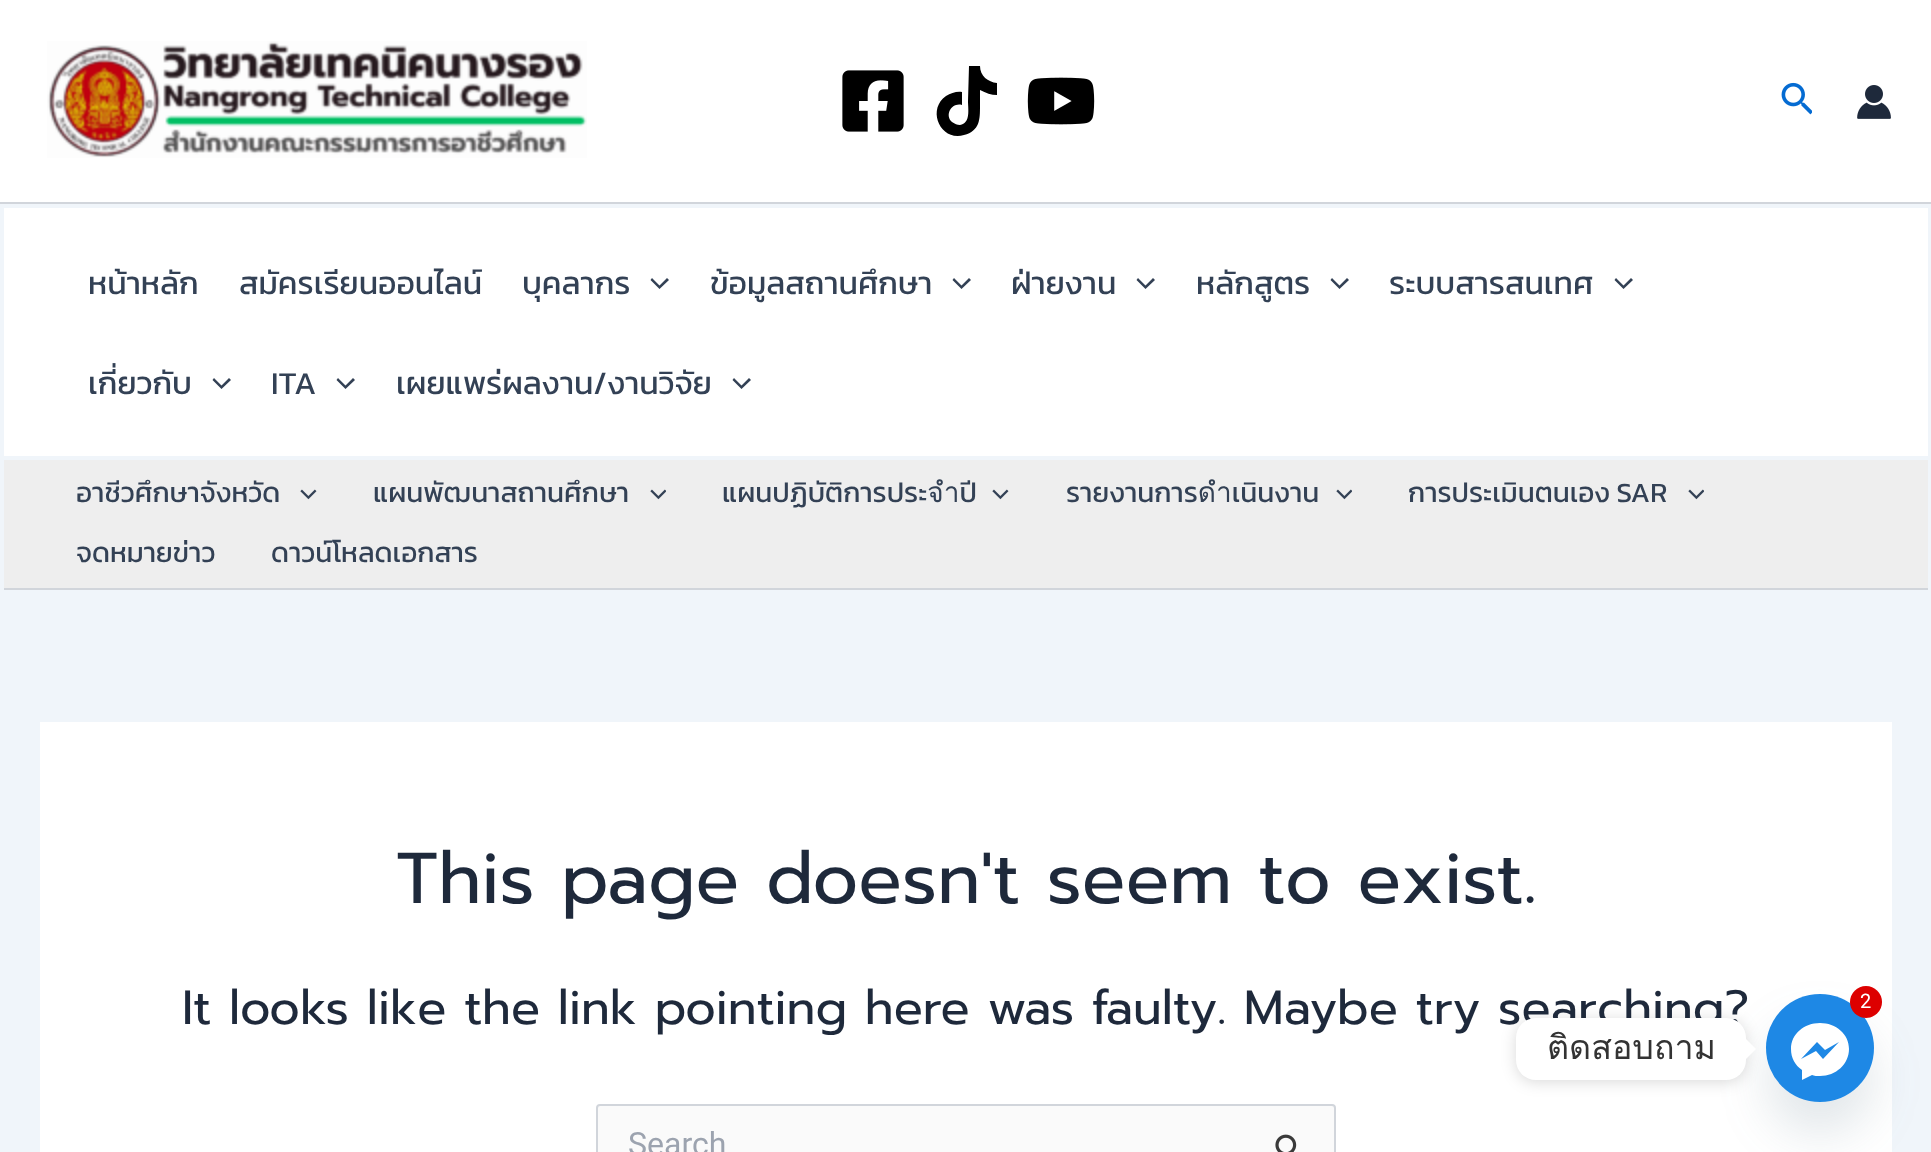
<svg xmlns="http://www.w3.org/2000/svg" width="1931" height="1152">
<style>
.a{font:32px Kanit;fill:#334155}
.b{font:28px Kanit;fill:#334155}
.c{font:72px Prompt;fill:#1e293b}
.d{font:48px Prompt;fill:#1e293b}
.e{font:32px Roboto;fill:#9ca3af}
.f{font:20px Roboto;fill:#fff}
.g{font:34px Loma;fill:#333}
</style>
<rect width="100%" height="100%" fill="#f0f5fa"/>
<path fill="#fff" d="M0 0h1931v202H0z"/>
<path fill="#d1d5db" d="M0 202h1931v2H0z"/>
<image href="1.png" x="47" y="41" width="540" height="117"/>
<image href="2.png" x="842" y="70" width="62" height="62"/>
<path fill="#000" d="M969 66h11c0 10 8 16 17 17v12c-6 0-11-2-17-5v16c0 13 0 25-16 29c-23 7-38-25-18-39c5-3 11-5 16-4v13c-10-3-18 10-10 17c3 2 5 3 8 3c11-2 8-16 8-24z"/>
<image href="3.png" x="1027" y="77" width="68" height="48"/>
<image href="4.png" x="1781" y="82" width="31" height="33"/>
<image href="5.png" x="1857" y="85" width="34" height="34"/>
<path fill="#fff" d="M4 208h1924v248H4z"/>
<path fill="#334155" d="M650.5 280l9 9l9.5-9l-2-2l-7.5 7.5l-7.5-7.5z"/>
<path fill="#334155" d="M952.5 280l9 9l9.5-9l-2-2l-7.5 7.5l-7.5-7.5z"/>
<path fill="#334155" d="M1136.5 280l9 9l9.5-9l-2-2l-7.5 7.5l-7.5-7.5z"/>
<path fill="#334155" d="M1330.5 280l9 9l9.5-9l-2-2l-7.5 7.5l-7.5-7.5z"/>
<path fill="#334155" d="M1614.5 280l9 9l9.5-9l-2-2l-7.5 7.5l-7.5-7.5z"/>
<path fill="#334155" d="M212.5 380l9 9l9.5-9l-2-2l-7.5 7.5l-7.5-7.5z"/>
<path fill="#334155" d="M336.5 380l9 9l9.5-9l-2-2l-7.5 7.5l-7.5-7.5z"/>
<path fill="#334155" d="M732.5 380l9 9l9.5-9l-2-2l-7.5 7.5l-7.5-7.5z"/>
<path fill="#eee" d="M4 460h1924v128H4z"/>
<path fill="#d1d5db" d="M4 588h1924v2H4z"/>
<image href="6.png" x="300" y="489" width="17" height="11"/>
<image href="7.png" x="650" y="489" width="16" height="11"/>
<image href="6.png" x="992" y="489" width="17" height="11"/>
<image href="7.png" x="1336" y="489" width="16" height="11"/>
<image href="7.png" x="1688" y="489" width="16" height="11"/>
<path fill="#fff" d="M40 722h1852v430H40z"/>
<rect fill="#fafafa" stroke="#d1d5db" stroke-width="2" x="597" y="1105" width="738" height="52" rx="3"/>
<image href="8.png" x="1275" y="1134" width="22" height="18"/>
<rect fill="#49687e29" filter="blur(24px)" x="1766" y="1026" width="108" height="108" rx="54"/>
<circle fill="#1e88e5" cx="1820" cy="1048" r="54"/>
<circle fill="#d00" cx="1866" cy="1002" r="16"/>
<path fill="#fff" fill-rule="evenodd" d="M1791 1049c0-15 13-26 29-26c16 0 29 11 29 26c0 15-13 27-29 27c-3 0-6 0-8-1l-10 5v-10c-7-5-11-12-11-21zm25 2l7 8l16-17l-14 8l-8-8l-16 17z"/>
<rect fill="#00000026" filter="blur(7.5px)" x="1516" y="1020" width="230" height="62" rx="20"/>
<path fill="#fff" d="M1746 1059v-20l10 10z"/>
<text class="a" x="88" y="294">หน้าหลัก</text>
<text class="a" x="239" y="294">สมัครเรียนออนไลน์</text>
<text class="a" x="522" y="294">บุคลากร</text>
<text class="a" x="710" y="294">ข้อมูลสถานศึกษา</text>
<text class="a" x="1011" y="294">ฝ่ายงาน</text>
<text class="a" x="1196" y="294">หลักสูตร</text>
<text class="a" x="1389" y="294">ระบบสารสนเทศ</text>
<text class="a" x="88" y="394">เกี่ยวกับ</text>
<text class="a" x="271" y="394">ITA</text>
<text class="a" x="396" y="394">เผยแพร่ผลงาน/งานวิจัย</text>
<text class="b" x="76" y="502">อาชีวศึกษาจังหวัด</text>
<text class="b" x="373" y="502">แผนพัฒนาสถานศึกษา</text>
<text class="b" x="722" y="502">แผนปฏิบัติการประจำปี</text>
<text class="b" x="1066" y="502">รายงานการดำเนินงาน</text>
<text class="b" x="1408" y="502">การประเมินตนเอง SAR</text>
<text class="b" x="76" y="562">จดหมายข่าว</text>
<text class="b" x="271" y="562">ดาวน์โหลดเอกสาร</text>
<text class="c" x="396" y="903">This page doesn't seem to exist.</text>
<text class="d" x="182" y="1024">It looks like the link pointing here was faulty. Maybe try searching?</text>
<text class="e" x="628" y="1155">Search</text>
<text class="f" x="1860" y="1008">2</text>
<rect fill="#fff" x="1516" y="1018" width="230" height="62" rx="20"/>
<text class="g" x="1547" y="1059">ติดสอบถาม</text>
</svg>
